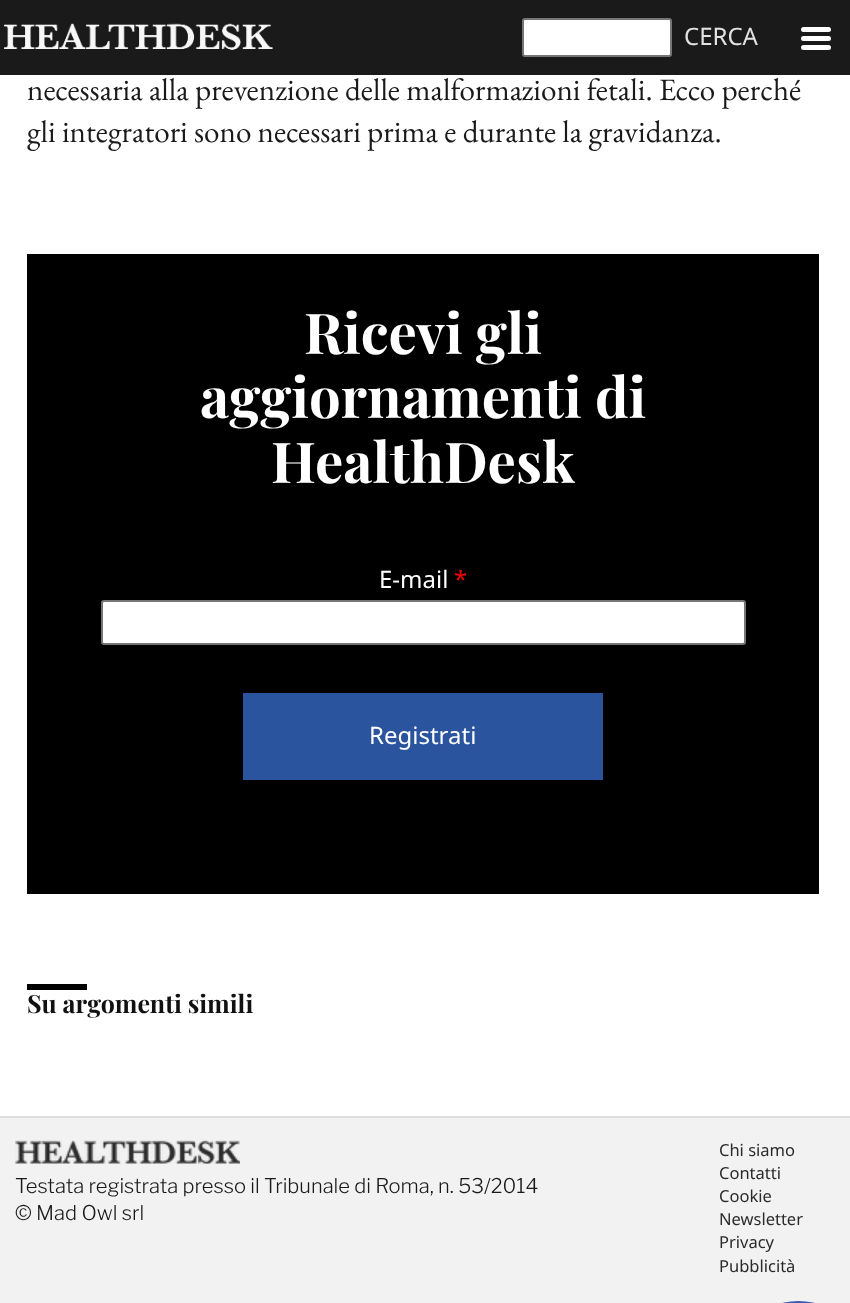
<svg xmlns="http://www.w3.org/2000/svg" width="850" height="1303">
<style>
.a{font:24px Noto Sans;fill:#e2e2e2}
.b{font:31.2px EB Garamond;fill:#1a1a1a}
.c{font:bold 56.25px Playfair Display;fill:#fff}
.d{font:24px Noto Sans;fill:#fff}
.e{font:24px Noto Sans;fill:#f00}
.f{font:bold 25px Playfair Display;fill:#111}
.g{font:300 20.15px Libre Franklin;fill:#1a1a1a}
.h{font:16.5px Noto Sans;fill:#2a2a2a}
</style>
<rect width="100%" height="100%" fill="#fff"/>
<path fill="#1a1a1a" d="M0 0h850v75H0z"/>
<image href="1.png" x="4" y="23" width="269" height="27"/>
<rect fill="#fff" stroke="#767676" stroke-width="2" x="523" y="19" width="148" height="37" rx="2"/>
<rect fill="#fff" x="801" y="27" width="30" height="5" rx="2.5"/>
<rect fill="#fff" x="801" y="36" width="30" height="5" rx="2.5"/>
<rect fill="#fff" x="801" y="45" width="30" height="5" rx="2.5"/>
<path fill="#000" d="M27 254h792v640H27z"/>
<rect fill="#fff" stroke="#767676" stroke-width="2" x="102" y="601" width="643" height="43" rx="2"/>
<path fill="#2b549f" d="M243 693h360v87H243z"/>
<path fill="#000" d="M27 984h60v6H27z"/>
<path fill="#f2f2f2" d="M0 1118h850v185H0z"/>
<path fill="#ddd" d="M0 1116h850v2H0z"/>
<image href="2.png" x="15" y="1140" width="225" height="24"/>
<rect fill="#365ab5" x="761" y="1301" width="75" height="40" rx="37.5"/>
<text class="a" x="684" y="45">CERCA</text>
<text class="b" x="27" y="100">necessaria alla prevenzione delle malformazioni fetali. Ecco perché</text>
<text class="b" x="27" y="142">gli integratori sono necessari prima e durante la gravidanza.</text>
<text class="c" x="304" y="354">Ricevi gli</text>
<text class="c" x="200" y="418">aggiornamenti di</text>
<text class="c" x="271" y="483">HealthDesk</text>
<text class="d" x="379" y="588">E-mail</text>
<text class="e" x="454" y="588">*</text>
<text class="d" x="369" y="744">Registrati</text>
<text class="f" x="27" y="1013">Su argomenti simili</text>
<text class="g" x="15" y="1193">Testata registrata presso il Tribunale di Roma, n. 53/2014</text>
<text class="g" x="15" y="1220">© Mad Owl srl</text>
<text class="h" x="719" y="1156">Chi siamo</text>
<text class="h" x="719" y="1179">Contatti</text>
<text class="h" x="719" y="1202">Cookie</text>
<text class="h" x="719" y="1225">Newsletter</text>
<text class="h" x="719" y="1248">Privacy</text>
<text class="h" x="719" y="1272">Pubblicità</text>
</svg>
